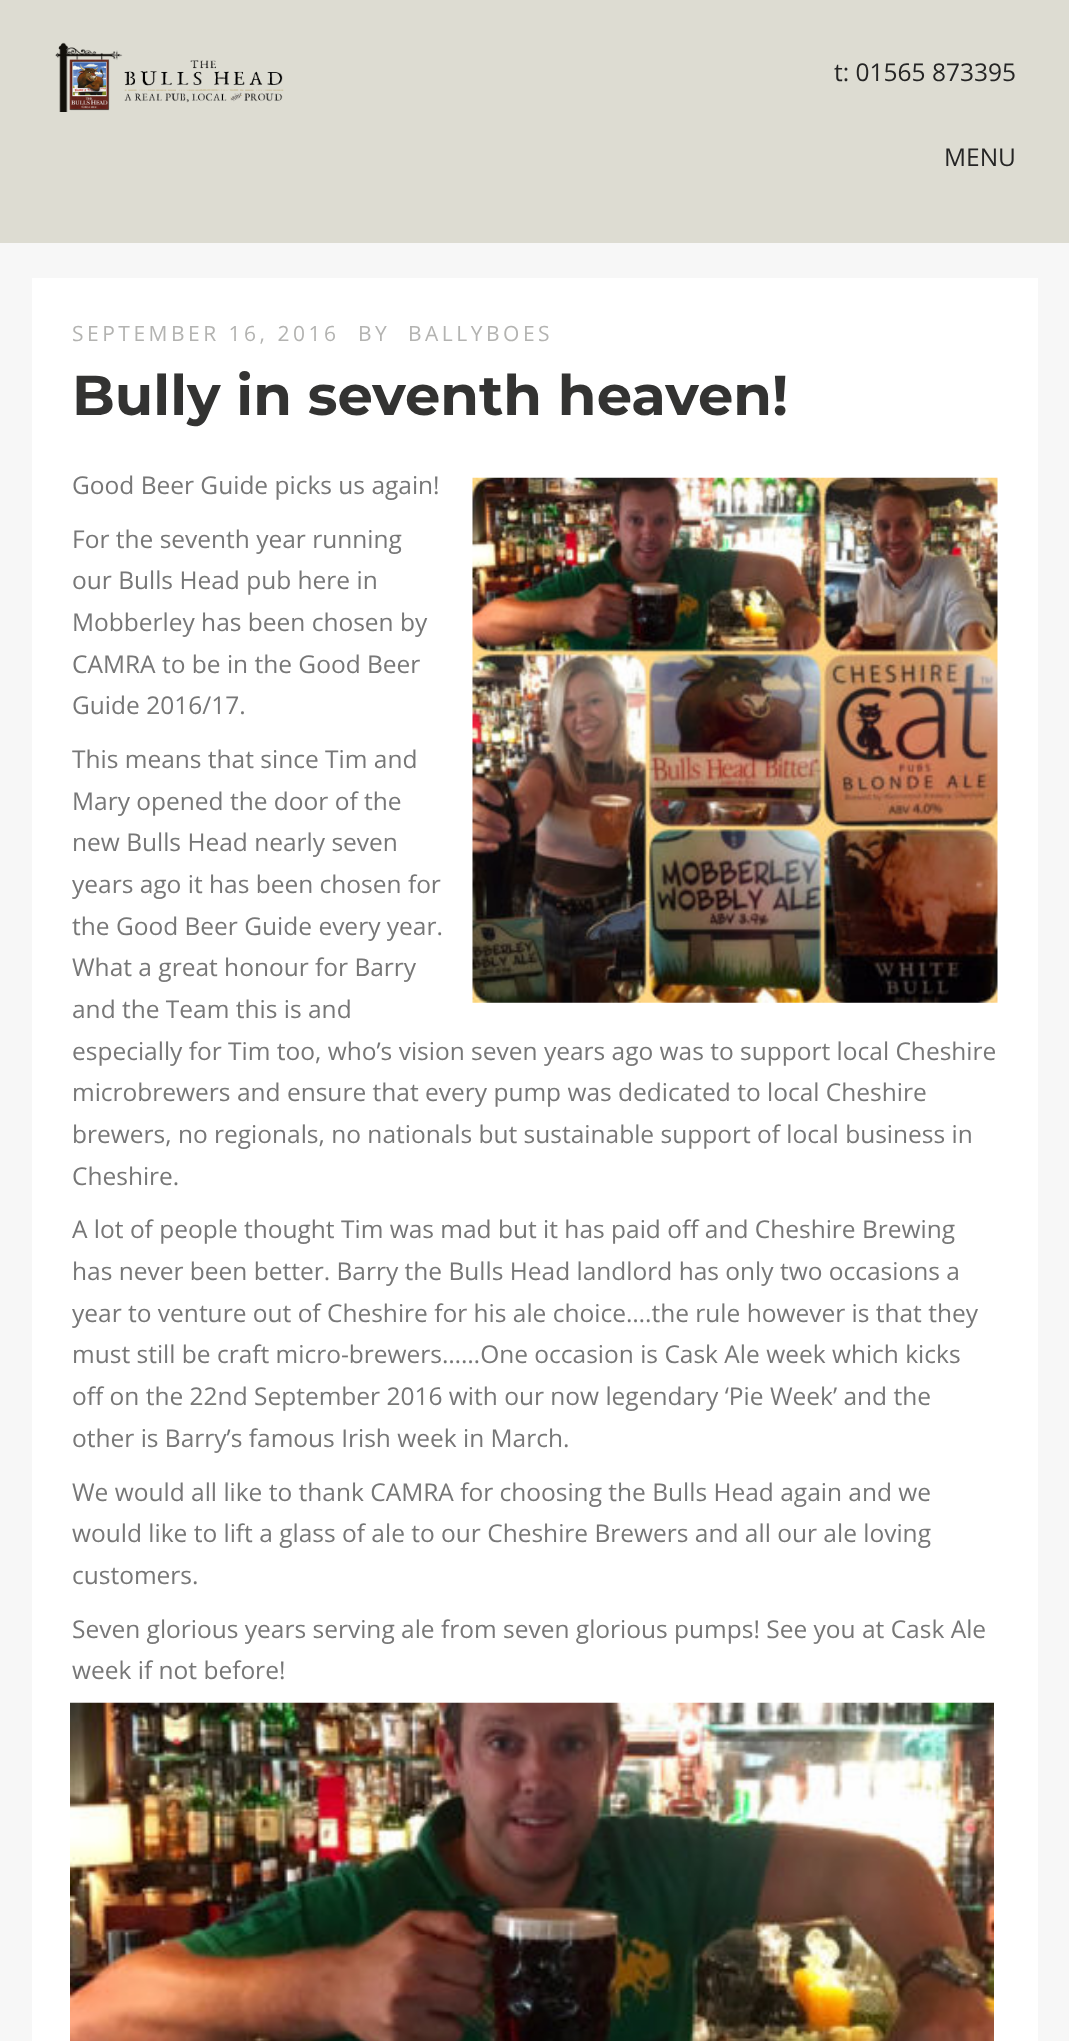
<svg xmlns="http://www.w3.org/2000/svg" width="1069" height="2041">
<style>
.a{font:24.5px Open Sans;fill:#252525}
.b{font:21px Open Sans;letter-spacing:3.5px;fill:#b3b3b1}
.c{font:bold 56px Montserrat;fill:#333332}
.d{font:24.5px Open Sans;fill:#777}
</style>
<rect width="100%" height="100%" fill="#f7f7f7"/>
<path fill="#dddcd2" d="M0 0h1069v243H0z"/>
<image href="1.png" x="55" y="42" width="229" height="70"/>
<path fill="#fff" d="M32 278h1006v1763H32z"/>
<image href="2.png" x="472" y="477" width="526" height="526"/>
<image href="3.png" x="70" y="1702" width="924" height="339"/>
<text class="a" x="834" y="81">t: 01565 873395</text>
<text class="a" x="944" y="166">MENU</text>
<text class="b" x="72" y="341">SEPTEMBER 16, 2016</text>
<text class="b" x="358" y="341">BY</text>
<text class="b" x="408" y="341">BALLYBOES</text>
<text class="c" x="72" y="415">Bully in seventh heaven!</text>
<text class="d" x="72" y="494">Good Beer Guide picks us again!</text>
<text class="d" x="72" y="548">For the seventh year running</text>
<text class="d" x="72" y="589">our Bulls Head pub here in</text>
<text class="d" x="72" y="631">Mobberley has been chosen by</text>
<text class="d" x="72" y="673">CAMRA to be in the Good Beer</text>
<text class="d" x="72" y="714">Guide 2016/17.</text>
<text class="d" x="72" y="768">This means that since Tim and</text>
<text class="d" x="72" y="810">Mary opened the door of the</text>
<text class="d" x="72" y="851">new Bulls Head nearly seven</text>
<text class="d" x="72" y="893">years ago it has been chosen for</text>
<text class="d" x="72" y="935">the Good Beer Guide every year.</text>
<text class="d" x="72" y="976">What a great honour for Barry</text>
<text class="d" x="72" y="1018">and the Team this is and</text>
<text class="d" x="72" y="1060">especially for Tim too, who’s vision seven years ago was to support local Cheshire</text>
<text class="d" x="72" y="1101">microbrewers and ensure that every pump was dedicated to local Cheshire</text>
<text class="d" x="72" y="1143">brewers, no regionals, no nationals but sustainable support of local business in</text>
<text class="d" x="72" y="1185">Cheshire.</text>
<text class="d" x="72" y="1238">A lot of people thought Tim was mad but it has paid off and Cheshire Brewing</text>
<text class="d" x="72" y="1280">has never been better. Barry the Bulls Head landlord has only two occasions a</text>
<text class="d" x="72" y="1322">year to venture out of Cheshire for his ale choice….the rule however is that they</text>
<text class="d" x="72" y="1363">must still be craft micro-brewers……One occasion is Cask Ale week which kicks</text>
<text class="d" x="72" y="1405">off on the 22nd September 2016 with our now legendary ‘Pie Week’ and the</text>
<text class="d" x="72" y="1447">other is Barry’s famous Irish week in March.</text>
<text class="d" x="72" y="1501">We would all like to thank CAMRA for choosing the Bulls Head again and we</text>
<text class="d" x="72" y="1542">would like to lift a glass of ale to our Cheshire Brewers and all our ale loving</text>
<text class="d" x="72" y="1584">customers.</text>
<text class="d" x="72" y="1638">Seven glorious years serving ale from seven glorious pumps! See you at Cask Ale</text>
<text class="d" x="72" y="1679">week if not before!</text>
</svg>
